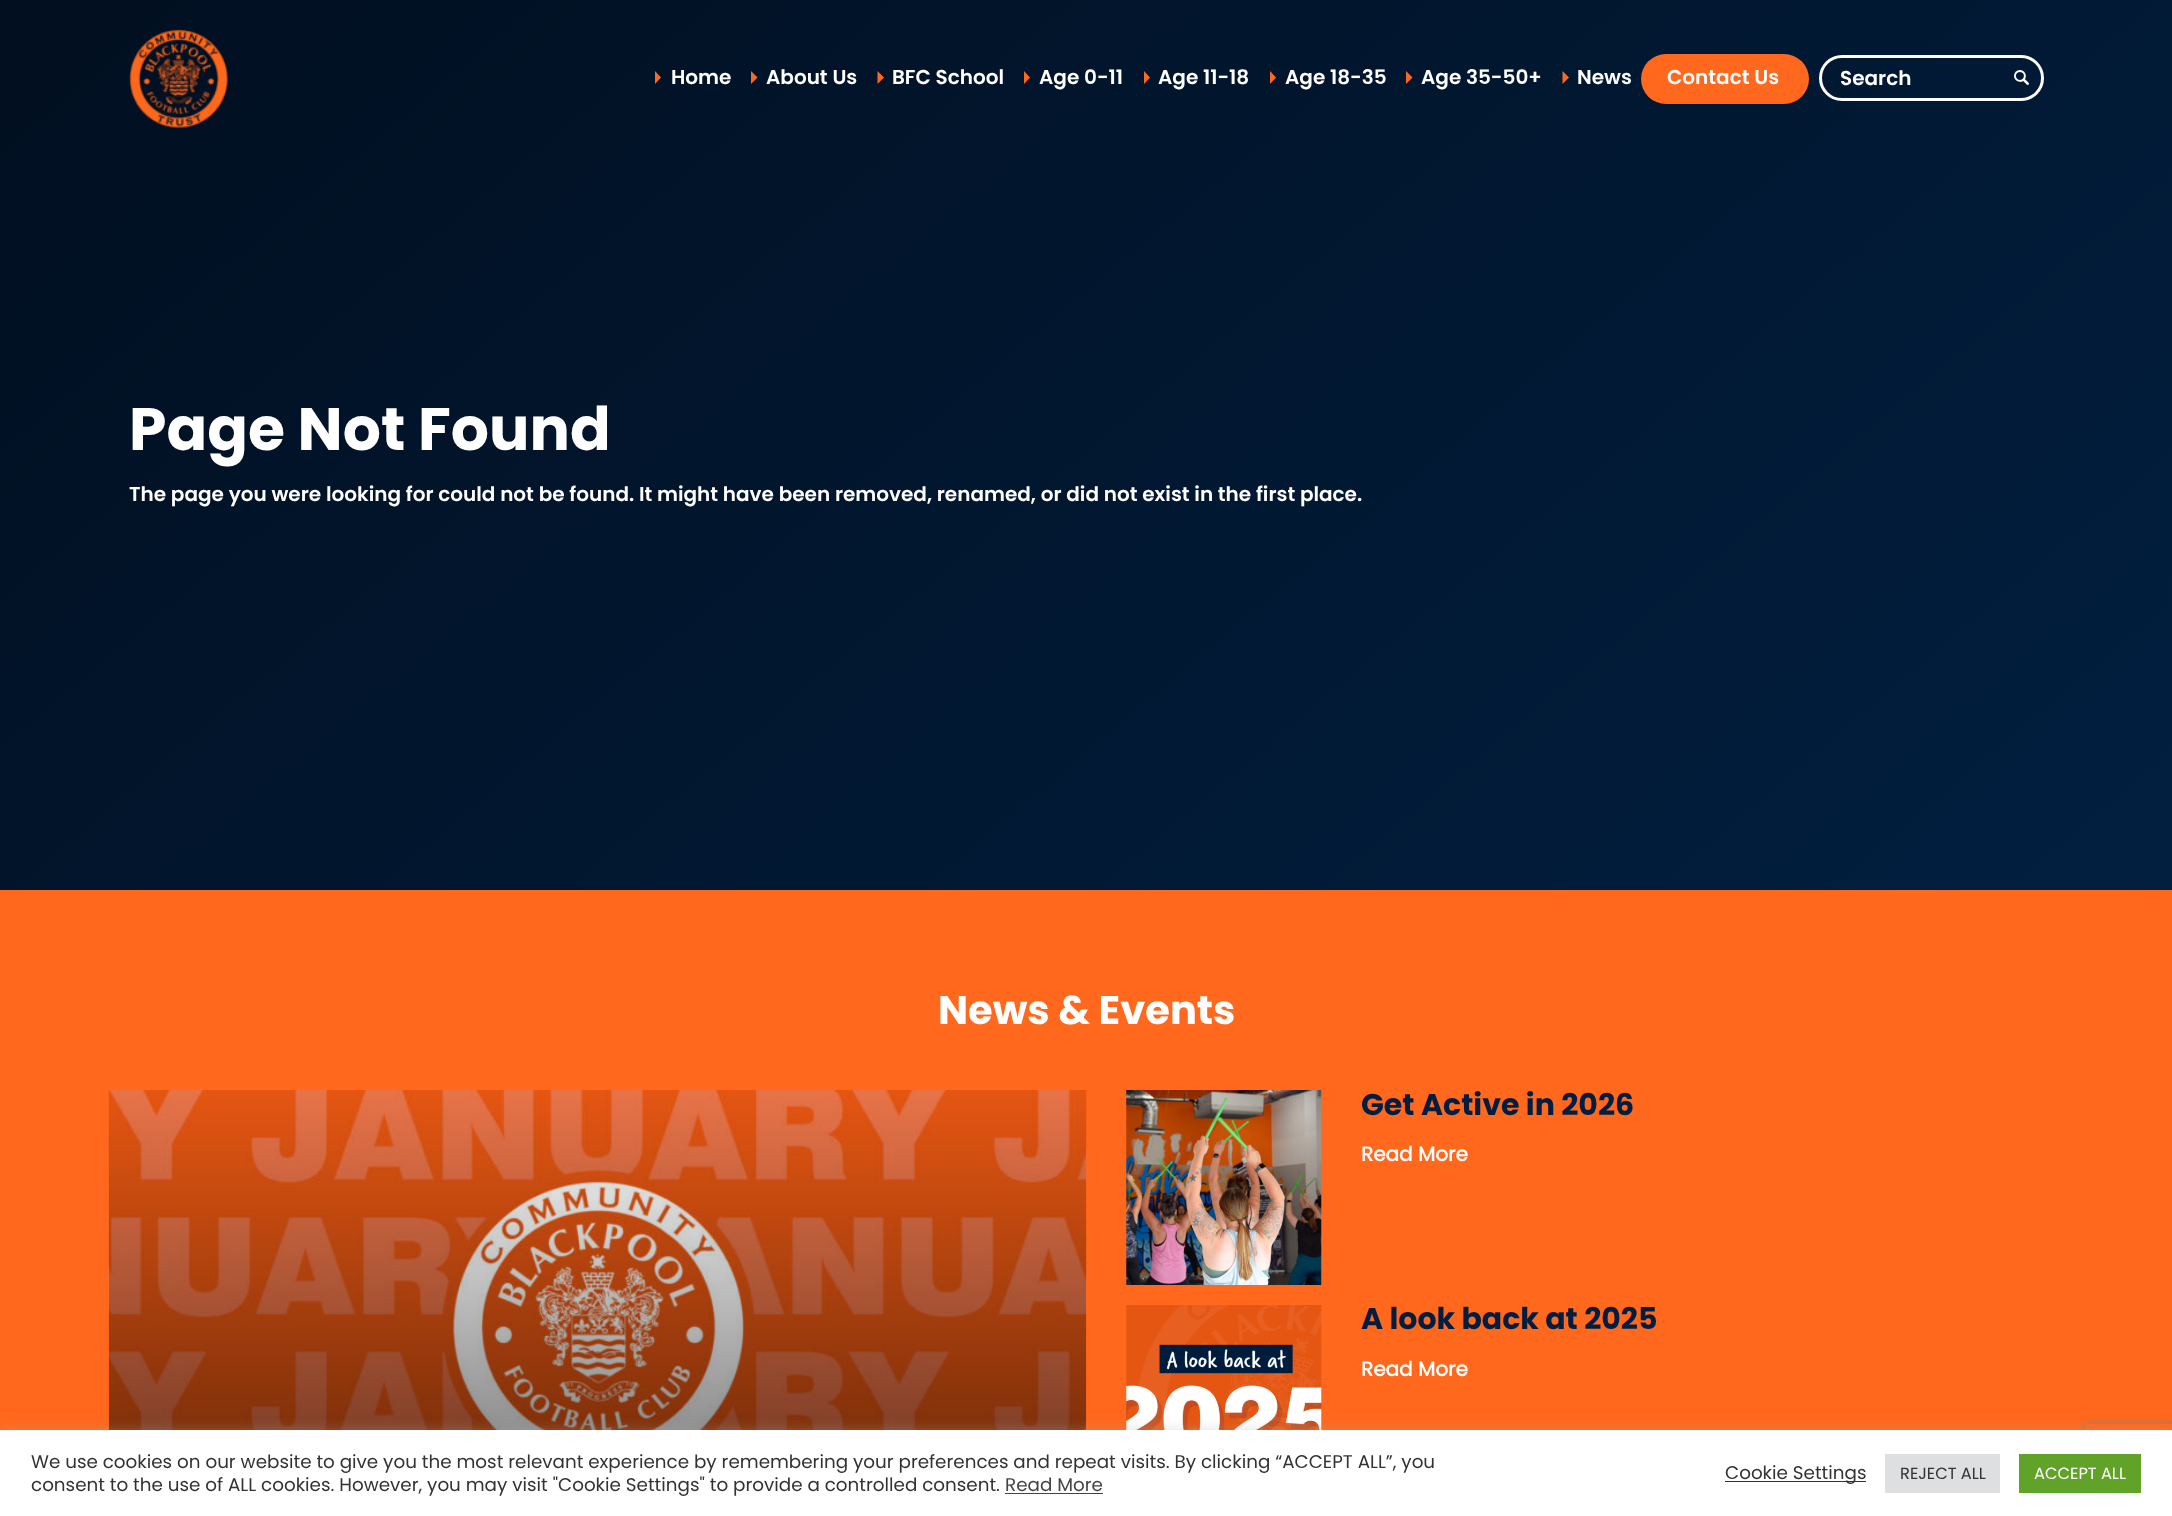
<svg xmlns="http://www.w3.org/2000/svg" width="2172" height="1516">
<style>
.a{font:600 20px Poppins;fill:#fff}
.b{font:15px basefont;fill:#fff}
.c{font:bold 60px Poppins;fill:#fff}
.d{font:bold 40px Poppins;fill:#fff}
.e{font:bold 30px Poppins;fill:#011e41}
.f{font:bold 20px 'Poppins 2';fill:#fff}
.g{font:18.33px Poppins;fill:#333}
.h{font:18.33px Poppins;fill:#444}
.i{font:16.25px Poppins;fill:#333}
.j{font:16.25px Poppins;fill:#fff}
</style>
<defs>
<linearGradient id="g1" gradientUnits="userSpaceOnUse" x1="418" y1="-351" x2="1754" y2="1241"><stop offset="0" stop-color="#010f20"/><stop offset="1" stop-color="#011f40"/></linearGradient>
<clipPath id="clip1"><path d="M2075 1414h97v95h-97zm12.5 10h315c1.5 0 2.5 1 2.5 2.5v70c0 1.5-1 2.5-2.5 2.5h-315c-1.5 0-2.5-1-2.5-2.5v-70c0-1.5 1-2.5 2.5-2.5z" clip-rule="evenodd"/></clipPath>
</defs>
<rect width="100%" height="100%" fill="#fff"/>
<path fill="url(#g1)" d="M0 0h2172v890H0z"/>
<image href="1.png" x="129" y="29" width="100" height="100"/>
<path fill="#ff681d" d="M655 84v-13l6 6.5z"/>
<path fill="#ff681d" d="M751 84v-13l6.5 6.5z"/>
<path fill="#ff681d" d="M877.5 84v-13l6.5 6.5z"/>
<path fill="#ff681d" d="M1024 84v-13l6 6.5z"/>
<path fill="#ff681d" d="M1144 84v-13l6 6.5z"/>
<path fill="#ff681d" d="M1270 84v-13l6 6.5z"/>
<path fill="#ff681d" d="M1406 84v-13l6.5 6.5z"/>
<path fill="#ff681d" d="M1562.5 84v-13l6.5 6.5z"/>
<rect fill="#ff681d" x="1641" y="54" width="168" height="50" rx="25"/>
<rect fill="none" stroke="#fff" stroke-width="3" x="1820.5" y="56.5" width="222" height="43" rx="21.5"/>
<path fill="#ff681d" d="M0 890h2172v540H0z"/>
<image href="2.png" x="108" y="1090" width="979" height="340"/>
<image href="3.png" x="1126" y="1090" width="196" height="195"/>
<image href="4.png" x="1126" y="1305" width="196" height="125"/>
<g clip-path="url(#clip1)">
<rect fill="#808080" filter="blur(3px)" x="2085" y="1424" width="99" height="75" rx="2.5"/>
</g>
<path fill="#acabab4d" filter="blur(6px)" d="M0 1429h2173v86H0z"/>
<path fill="#fff" d="M0 1430h2172v86H0z"/>
<path fill="#444" d="M1005 1493h98v1H1005z"/>
<path fill="#333" d="M1725 1481h141v1H1725z"/>
<path fill="#dedfe0" d="M1885 1454h115v39H1885z"/>
<path fill="#61a229" d="M2019 1454h122v39H2019z"/>
<text class="a" x="671" y="84">Home</text>
<text class="a" x="766" y="84">About Us</text>
<text class="a" x="892" y="84">BFC School</text>
<text class="a" x="1039" y="84">Age 0-11</text>
<text class="a" x="1158" y="84">Age 11-18</text>
<text class="a" x="1285" y="84">Age 18-35</text>
<text class="a" x="1421" y="84">Age 35-50+</text>
<text class="a" x="1577" y="84">News</text>
<text class="a" x="1667" y="84">Contact Us</text>
<text class="a" x="1840" y="85">Search</text>
<text class="b" x="2014" y="85">f</text>
<text class="c" x="129" y="450">Page Not Found</text>
<text class="a" x="129" y="501">The page you were looking for could not be found. It might have been removed, renamed, or did not exist in the first place.</text>
<text class="d" x="938" y="1024">News &amp; Events</text>
<text class="e" x="1361" y="1115">Get Active in 2026</text>
<text class="f" x="1361" y="1161">Read More</text>
<text class="e" x="1361" y="1329">A look back at 2025</text>
<text class="f" x="1361" y="1376">Read More</text>
<text class="g" x="31" y="1468">We use cookies on our website to give you the most relevant experience by remembering your preferences and repeat visits. By clicking “ACCEPT ALL”, you</text>
<text class="g" x="31" y="1491">consent to the use of ALL cookies. However, you may visit "Cookie Settings" to provide a controlled consent.</text>
<text class="h" x="1005" y="1491">Read More</text>
<text class="g" x="1725" y="1479">Cookie Settings</text>
<text class="i" x="1900" y="1479">REJECT ALL</text>
<text class="j" x="2034" y="1479">ACCEPT ALL</text>
</svg>
